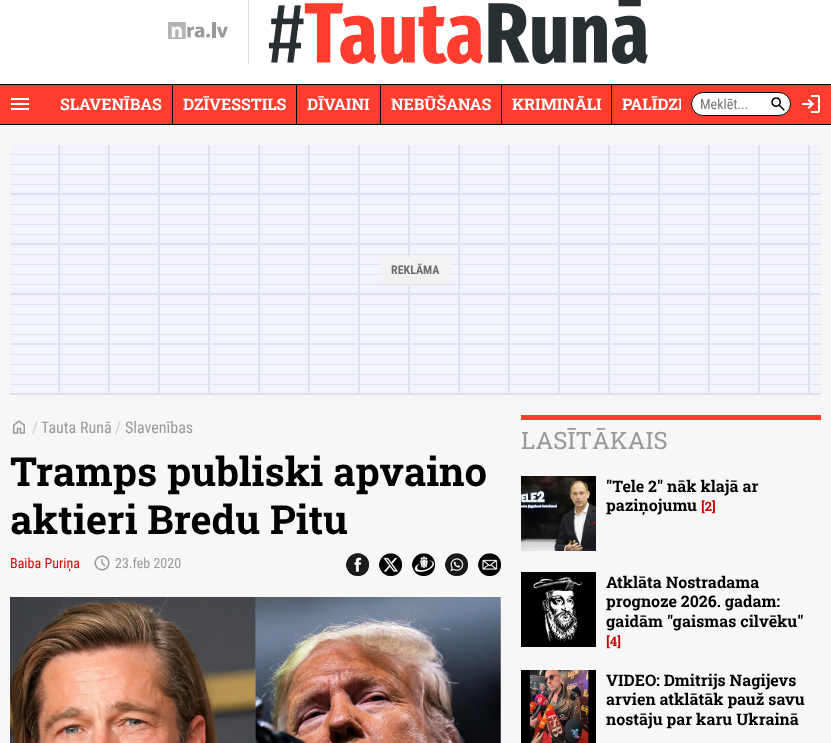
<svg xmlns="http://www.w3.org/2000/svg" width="831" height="743">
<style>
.a{font:bold 16px Roboto Slab;fill:#fff}
.b{font:14px Roboto Condensed;fill:#757575}
.c{font:bold 12px Roboto Condensed;fill:#6d6d6d}
.d{font:16px Roboto Condensed;fill:#ccc}
.e{font:16px Roboto Condensed;fill:#999}
.f{font:bold 40px Roboto Slab;fill:#000}
.g{font:14px Roboto Condensed;fill:#e10000}
.h{font:14px Roboto Condensed;fill:#999}
.i{font:24px Roboto Slab;fill:#999}
.j{font:bold 16px Roboto Slab;fill:#000}
.k{font:bold 13px Roboto Slab;fill:#c00}
</style>
<defs>
<clipPath id="clip1"><path d="M50 85h631v39H50z"/></clipPath>
</defs>
<rect width="100%" height="100%" fill="#f7f7f7"/>
<path fill="#fff" d="M0 0h831v84H0z"/>
<path fill="#000" d="M0 124h831v1H0z"/>
<image href="1.png" x="168" y="22" width="60" height="17"/>
<path fill="#ddd" d="M248 0h1v64H248z"/>
<image href="2.png" x="269" y="0" width="379" height="64"/>
<path fill="#ff3d2e" d="M0 85h831v39H0z"/>
<image href="3.png" x="11" y="98" width="18" height="12"/>
<path fill="#000" d="M0 84h831v1H0z"/>
<path fill="#000" d="M172 85h1v39H172z"/>
<path fill="#000" d="M296 85h1v39H296z"/>
<path fill="#000" d="M380 85h1v39H380z"/>
<path fill="#000" d="M501 85h1v39H501z"/>
<path fill="#000" d="M611 85h1v39H611z"/>
<rect fill="#fff" stroke="#000" x="691.5" y="92.5" width="99" height="23" rx="11.5"/>
<image href="4.png" x="771" y="97" width="14" height="14"/>
<image href="5.png" x="802" y="95" width="18" height="18"/>
<path fill="#f2f3fc" d="M10 145h811v248H10z"/>
<image href="6.png" x="10" y="154" width="811" height="231"/>
<path fill="#e0e1ee" d="M58 145h2v250H58z"/>
<path fill="#e0e1ee" d="M108 145h2v250H108z"/>
<path fill="#e0e1ee" d="M158 145h2v250H158z"/>
<path fill="#e0e1ee" d="M208 145h2v250H208z"/>
<path fill="#e0e1ee" d="M258 145h2v250H258z"/>
<path fill="#e0e1ee" d="M308 145h2v250H308z"/>
<path fill="#e0e1ee" d="M358 145h2v250H358z"/>
<path fill="#e0e1ee" d="M408 145h2v250H408z"/>
<path fill="#e0e1ee" d="M458 145h2v250H458z"/>
<path fill="#e0e1ee" d="M508 145h2v250H508z"/>
<path fill="#e0e1ee" d="M558 145h2v250H558z"/>
<path fill="#e0e1ee" d="M608 145h2v250H608z"/>
<path fill="#e0e1ee" d="M658 145h2v250H658z"/>
<path fill="#e0e1ee" d="M708 145h2v250H708z"/>
<path fill="#e0e1ee" d="M758 145h2v250H758z"/>
<path fill="#e0e1ee" d="M808 145h2v250H808z"/>
<path fill="#e0e1ee" d="M10 193h811v1H10z"/>
<path fill="#e0e1ee" d="M10 243h811v1H10z"/>
<path fill="#e0e1ee" d="M10 293h811v1H10z"/>
<path fill="#e0e1ee" d="M10 343h811v1H10z"/>
<path fill="#e0e1ee" d="M10 393h811v2H10z"/>
<path fill="#f2f2f2" d="M382 257h68v27H382z"/>
<image href="7.png" x="13" y="420" width="12" height="14"/>
<image href="8.png" x="94" y="555" width="16" height="16"/>
<image href="9.png" x="346" y="553" width="23" height="23"/>
<image href="10.png" x="379" y="553" width="23" height="23"/>
<image href="11.png" x="412" y="553" width="23" height="23"/>
<image href="12.png" x="445" y="553" width="23" height="23"/>
<image href="13.png" x="478" y="553" width="23" height="23"/>
<image href="14.png" x="10" y="597" width="491" height="146"/>
<path fill="#ff3d2e" d="M521 415h300v5H521z"/>
<image href="15.png" x="521" y="476" width="75" height="75"/>
<image href="16.png" x="521" y="572" width="75" height="75"/>
<image href="17.png" x="521" y="670" width="75" height="73"/>
<text class="a" x="60" y="110">SLAVENĪBAS</text>
<text class="a" x="183" y="110">DZĪVESSTILS</text>
<text class="a" x="307" y="110">DĪVAINI</text>
<text class="a" x="391" y="110">NEBŪŠANAS</text>
<text class="a" x="512" y="110">KRIMINĀLI</text>
<g clip-path="url(#clip1)">
<text class="a" x="622" y="110">PALĪDZI</text>
</g>
<text class="b" x="700" y="109">Meklēt...</text>
<text class="c" x="391" y="274">REKLĀMA</text>
<text class="d" x="32" y="433">/</text>
<text class="e" x="41" y="433">Tauta Runā</text>
<text class="d" x="115" y="433">/</text>
<text class="e" x="125" y="433">Slavenības</text>
<text class="f" x="10" y="486">Tramps publiski apvaino</text>
<text class="f" x="10" y="534">aktieri Bredu Pitu</text>
<text class="g" x="10" y="568">Baiba Puriņa</text>
<text class="h" x="115" y="568">23.feb 2020</text>
<text class="i" x="521" y="449">LASĪTĀKAIS</text>
<text class="j" x="606" y="492">"Tele 2" nāk klajā ar</text>
<text class="j" x="606" y="511">paziņojumu</text>
<text class="k" x="701" y="511">[2]</text>
<text class="j" x="606" y="588">Atklāta Nostradama</text>
<text class="j" x="606" y="607">prognoze 2026. gadam:</text>
<text class="j" x="606" y="627">gaidām "gaismas cilvēku"</text>
<text class="k" x="606" y="646">[4]</text>
<text class="j" x="606" y="686">VIDEO: Dmitrijs Nagijevs</text>
<text class="j" x="606" y="705">arvien atklātāk pauž savu</text>
<text class="j" x="606" y="725">nostāju par karu Ukrainā</text>
</svg>
